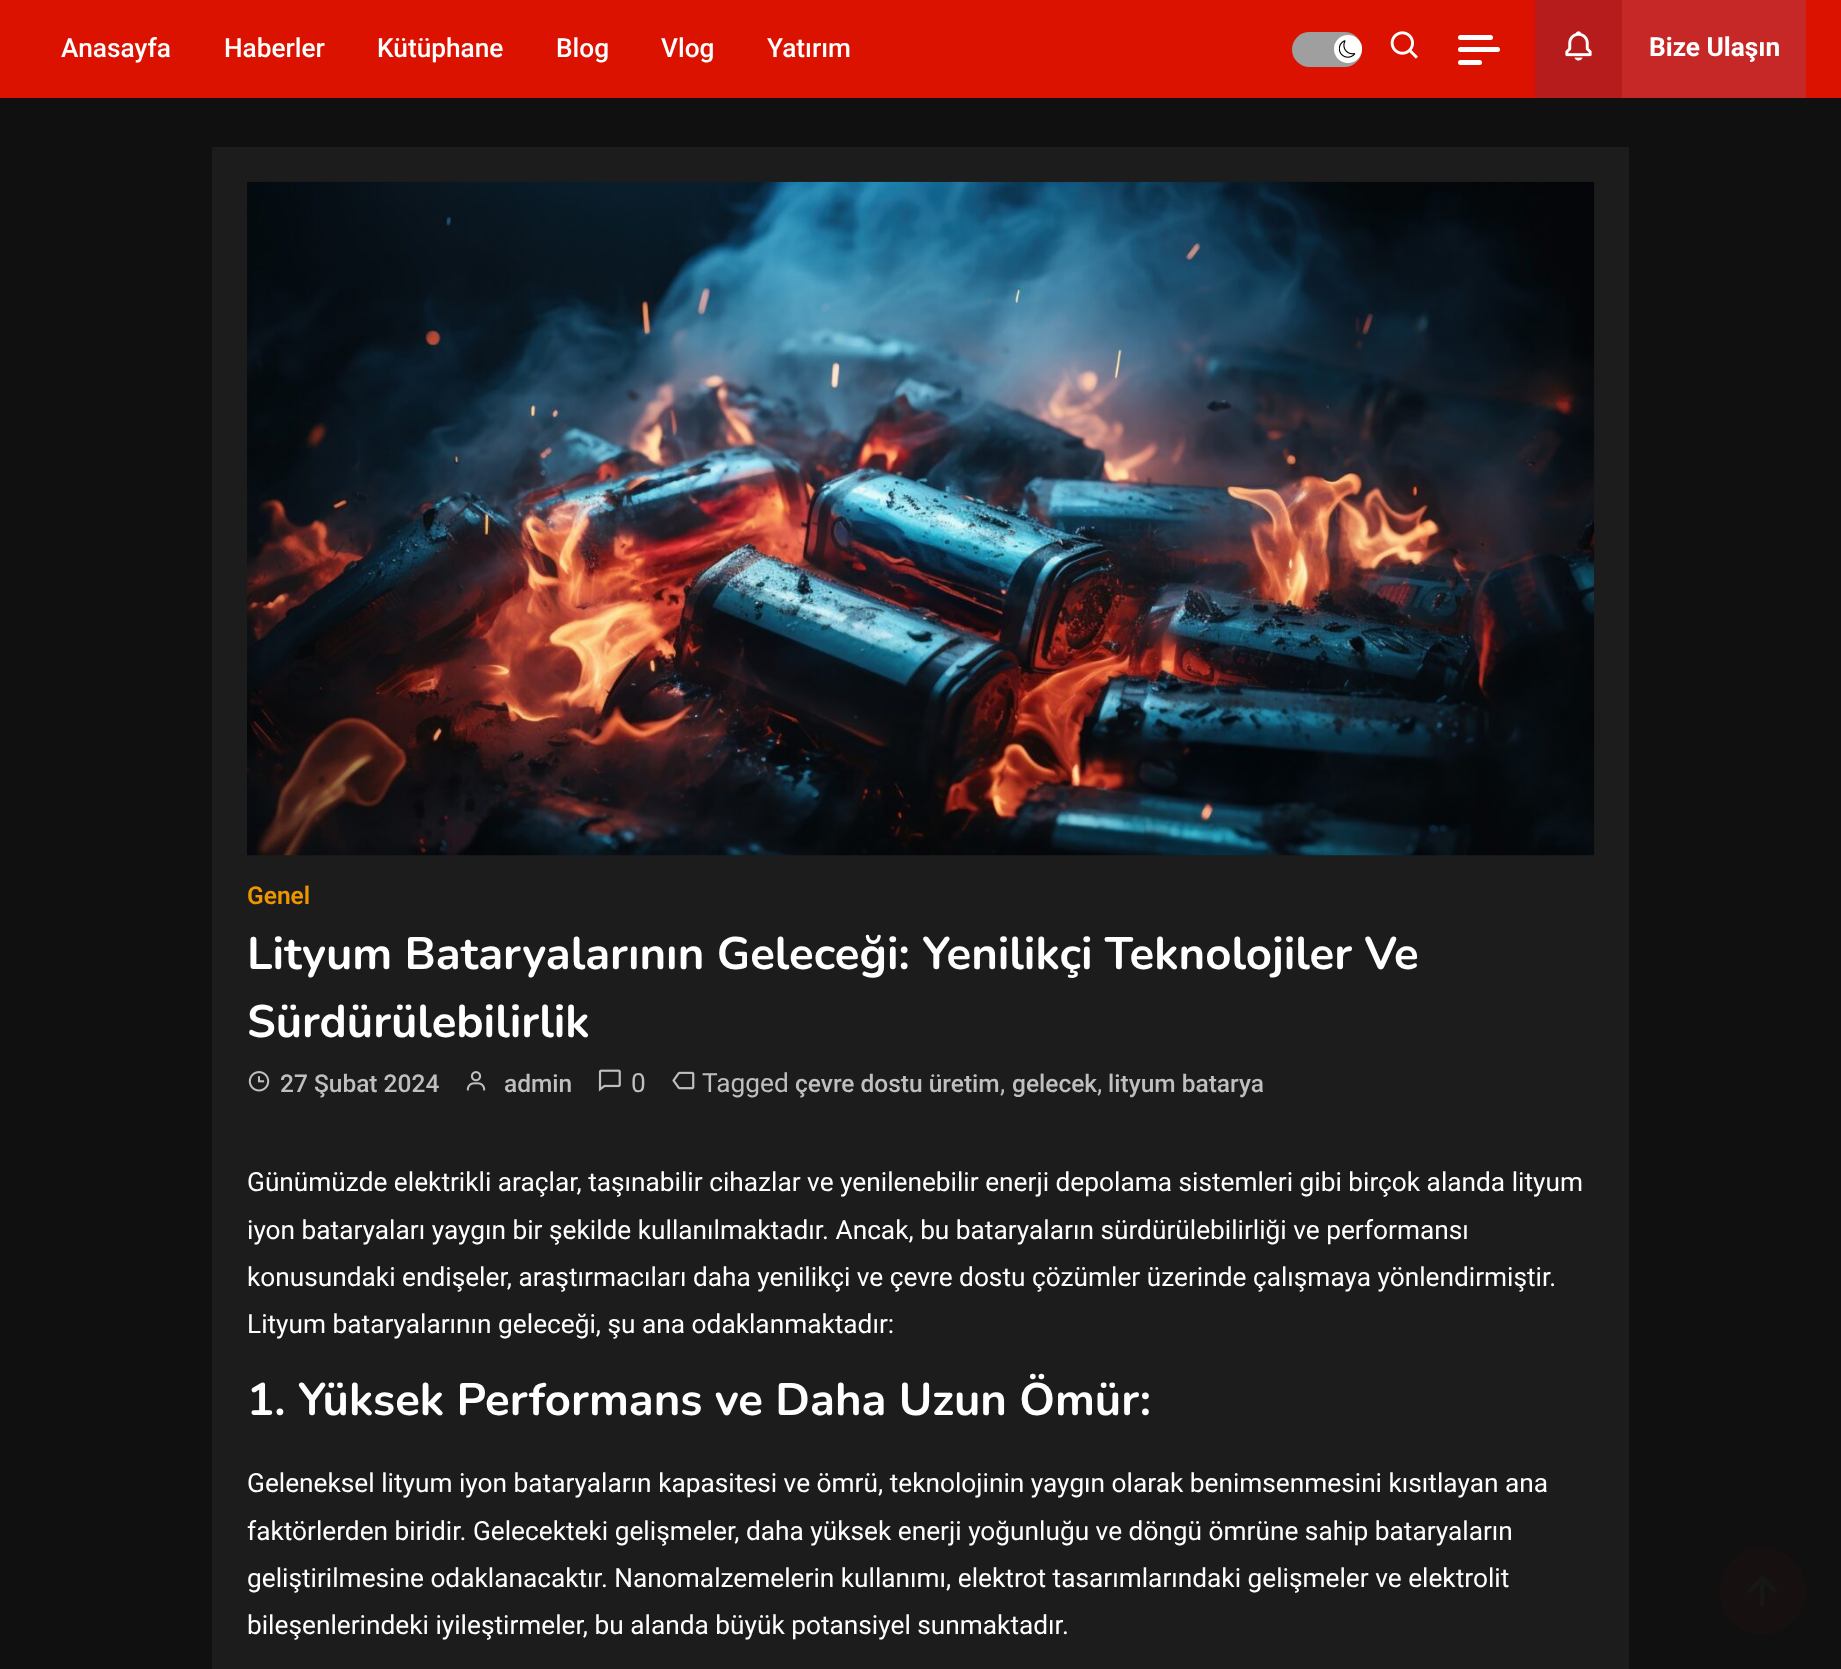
<svg xmlns="http://www.w3.org/2000/svg" width="1841" height="1669">
<style>
.a{font:500 26.25px Roboto;fill:#fff}
.b{font:bold 26.25px Roboto;fill:#fff}
.c{font:600 24.5px Roboto;fill:#ed9600}
.d{font:bold 45.5px Nunito;fill:#fff}
.e{font:500 24.5px Roboto;fill:#bfbfbf}
.f{font:26.25px Roboto;fill:#bfbfbf}
.g{font:26.25px Roboto;fill:#fff}
</style>
<rect width="100%" height="100%" fill="#101010"/>
<path fill="#db1200" d="M0 0h1841v98H0z"/>
<rect fill="#9f9f9f" x="1292" y="32" width="70" height="35" rx="17.5"/>
<circle fill="#fff" cx="1348" cy="49" r="14"/>
<image href="1.png" x="1339" y="40" width="17" height="18"/>
<image href="2.png" x="1390" y="31" width="28" height="28"/>
<rect fill="#fff" x="1458" y="35" width="35" height="5" rx="2.5"/>
<rect fill="#fff" x="1458" y="47" width="42" height="5" rx="2.5"/>
<rect fill="#fff" x="1458" y="60" width="24" height="5" rx="2.5"/>
<path fill="#c62828" d="M1622 0h184v98H1622z"/>
<path fill="#b71c1c" d="M1535 0h87v98H1535z"/>
<image href="3.png" x="1565" y="31" width="27" height="30"/>
<path fill="#1c1c1c" d="M212 147h1417v1522H212z"/>
<image href="4.png" x="247" y="181" width="1348" height="675"/>
<image href="5.png" x="248" y="1071" width="22" height="21"/>
<image href="6.png" x="466" y="1071" width="20" height="20"/>
<image href="7.png" x="598" y="1069" width="23" height="23"/>
<image href="8.png" x="672" y="1071" width="23" height="19"/>
<rect fill="#161010" x="1719" y="1547" width="87" height="88" rx="43.5"/>
<path fill="#171717" d="M1760 1584v22.5h4.5v-22.5l10 10l3.5-3l-16-16l-15.5 16l3.5 3z"/>
<text class="a" x="61" y="57">Anasayfa</text>
<text class="a" x="224" y="57">Haberler</text>
<text class="a" x="377" y="57">Kütüphane</text>
<text class="a" x="556" y="57">Blog</text>
<text class="a" x="661" y="57">Vlog</text>
<text class="a" x="767" y="57">Yatırım</text>
<text class="b" x="1649" y="56">Bize Ulaşın</text>
<text class="c" x="247" y="904">Genel</text>
<text class="d" x="247" y="969">Lityum Bataryalarının Geleceği: Yenilikçi Teknolojiler Ve</text>
<text class="d" x="247" y="1037">Sürdürülebilirlik</text>
<text class="e" x="280" y="1092">27 Şubat 2024</text>
<text class="e" x="504" y="1092">admin</text>
<text class="f" x="631" y="1092">0</text>
<text class="f" x="702" y="1092">Tagged</text>
<text class="e" x="795" y="1092">çevre dostu üretim</text>
<text class="f" x="1000" y="1092">,</text>
<text class="e" x="1012" y="1092">gelecek</text>
<text class="f" x="1097" y="1092">,</text>
<text class="e" x="1108" y="1092">lityum batarya</text>
<text class="g" x="247" y="1191">Günümüzde elektrikli araçlar, taşınabilir cihazlar ve yenilenebilir enerji depolama sistemleri gibi birçok alanda lityum</text>
<text class="g" x="247" y="1239">iyon bataryaları yaygın bir şekilde kullanılmaktadır. Ancak, bu bataryaların sürdürülebilirliği ve performansı</text>
<text class="g" x="247" y="1286">konusundaki endişeler, araştırmacıları daha yenilikçi ve çevre dostu çözümler üzerinde çalışmaya yönlendirmiştir.</text>
<text class="g" x="247" y="1333">Lityum bataryalarının geleceği, şu ana odaklanmaktadır:</text>
<text class="d" x="247" y="1415">1. Yüksek Performans ve Daha Uzun Ömür:</text>
<text class="g" x="247" y="1492">Geleneksel lityum iyon bataryaların kapasitesi ve ömrü, teknolojinin yaygın olarak benimsenmesini kısıtlayan ana</text>
<text class="g" x="247" y="1540">faktörlerden biridir. Gelecekteki gelişmeler, daha yüksek enerji yoğunluğu ve döngü ömrüne sahip bataryaların</text>
<text class="g" x="247" y="1587">geliştirilmesine odaklanacaktır. Nanomalzemelerin kullanımı, elektrot tasarımlarındaki gelişmeler ve elektrolit</text>
<text class="g" x="247" y="1634">bileşenlerindeki iyileştirmeler, bu alanda büyük potansiyel sunmaktadır.</text>
</svg>
